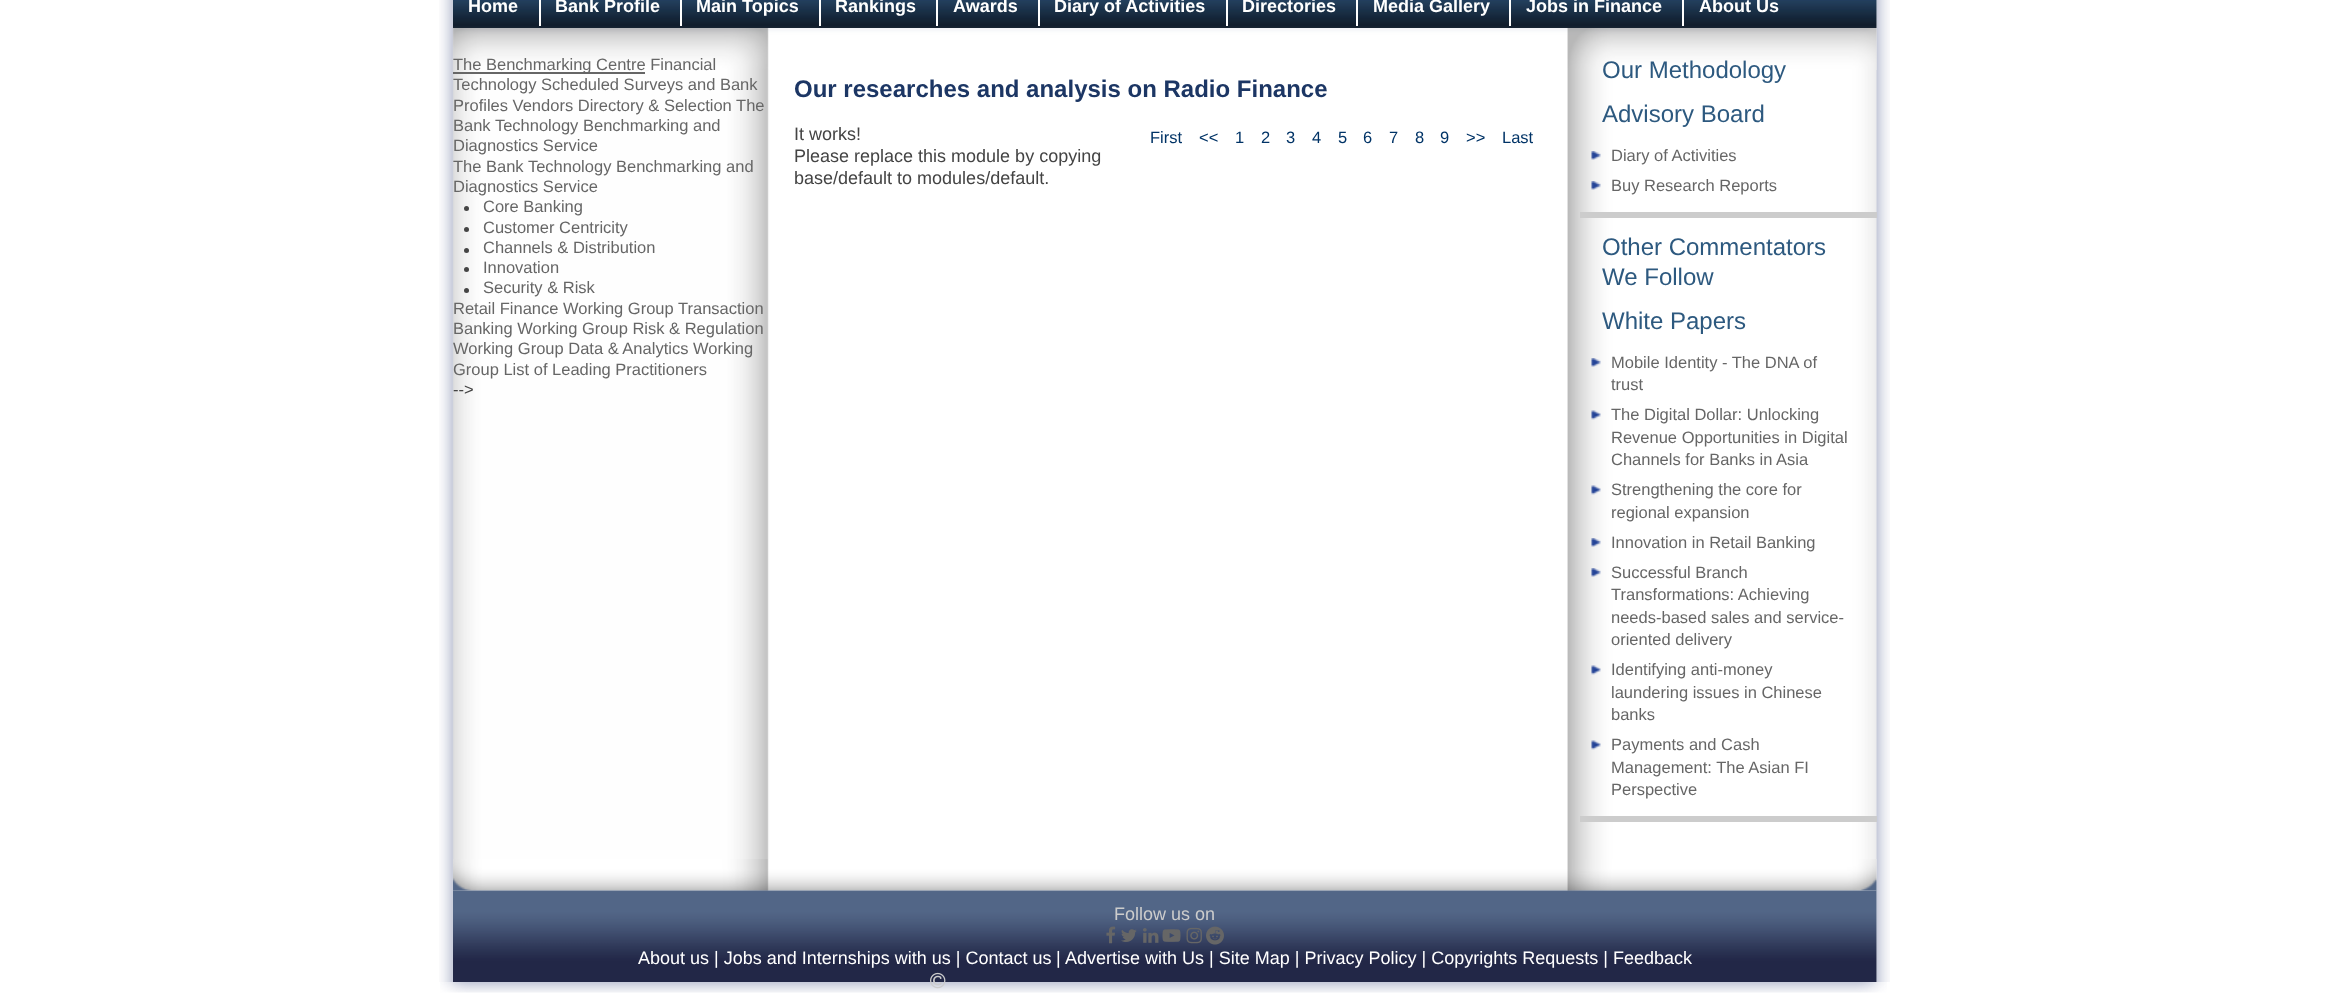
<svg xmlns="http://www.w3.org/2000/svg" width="2329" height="994">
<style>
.a{font:bold 18px Liberation Sans;fill:#fff}
.b{font:16.5px Liberation Sans;fill:#666}
.c{font:16.5px Liberation Sans;fill:#444}
.d{font:bold 24px Liberation Sans;fill:#1c3664}
.e{font:18px Liberation Sans;fill:#444}
.f{font:16.5px Liberation Sans;fill:#036}
.g{font:24px Liberation Sans;fill:#2d597f}
.h{font:18px Liberation Sans;fill:#ccc}
.i{font:18px Liberation Sans;fill:#fff}
</style>
<rect width="100%" height="100%" fill="#fff"/>
<image href="1.png" x="439" y="0" width="1451" height="859"/>
<image href="2.png" x="453" y="0" width="1424" height="28"/>
<path fill="#fff" d="M539 0h2v26H539z"/>
<path fill="#fff" d="M680 0h2v26H680z"/>
<path fill="#fff" d="M819 0h2v26H819z"/>
<path fill="#fff" d="M936 0h2v26H936z"/>
<path fill="#fff" d="M1038 0h2v26H1038z"/>
<path fill="#fff" d="M1226 0h2v26H1226z"/>
<path fill="#fff" d="M1356 0h2v26H1356z"/>
<path fill="#fff" d="M1509 0h2v26H1509z"/>
<path fill="#fff" d="M1682 0h2v26H1682z"/>
<image href="3.png" x="452" y="28" width="1425" height="42"/>
<path fill="#666" d="M453 72h192v2H453z"/>
<circle fill="#444" cx="466.5" cy="208.5" r="2.5"/>
<circle fill="#444" cx="466.5" cy="229.5" r="2.5"/>
<circle fill="#444" cx="466.5" cy="250.5" r="2.5"/>
<circle fill="#444" cx="466.5" cy="269.5" r="2.5"/>
<circle fill="#444" cx="466.5" cy="290.5" r="2.5"/>
<path fill="#ccc" d="M1580 212h297v6H1580z"/>
<image href="4.png" x="1591" y="151" width="10" height="9"/>
<image href="4.png" x="1591" y="181" width="10" height="9"/>
<path fill="#ccc" d="M1580 816h297v6H1580z"/>
<image href="4.png" x="1591" y="358" width="10" height="9"/>
<image href="5.png" x="1591" y="410" width="10" height="10"/>
<image href="5.png" x="1591" y="485" width="10" height="10"/>
<image href="4.png" x="1591" y="538" width="10" height="9"/>
<image href="4.png" x="1591" y="568" width="10" height="9"/>
<image href="5.png" x="1591" y="665" width="10" height="10"/>
<image href="5.png" x="1591" y="740" width="10" height="10"/>
<image href="6.png" x="439" y="859" width="1451" height="123"/>
<image href="7.png" x="453" y="859" width="1424" height="32"/>
<image href="8.png" x="453" y="890" width="1424" height="92"/>
<image href="9.png" x="1106" y="926" width="10" height="18"/>
<image href="10.png" x="1121" y="929" width="16" height="13"/>
<image href="11.png" x="1143" y="928" width="16" height="15"/>
<image href="12.png" x="1162" y="929" width="19" height="13"/>
<image href="13.png" x="1186" y="927" width="16" height="17"/>
<image href="14.png" x="1206" y="926" width="18" height="19"/>
<image href="16.png" x="440" y="982" width="1447" height="11"/>
<image href="15.png" x="930" y="972" width="16" height="17"/>
<text class="a" x="468" y="12">Home</text>
<text class="a" x="555" y="12">Bank Profile</text>
<text class="a" x="696" y="12">Main Topics</text>
<text class="a" x="835" y="12">Rankings</text>
<text class="a" x="953" y="12">Awards</text>
<text class="a" x="1054" y="12">Diary of Activities</text>
<text class="a" x="1242" y="12">Directories</text>
<text class="a" x="1373" y="12">Media Gallery</text>
<text class="a" x="1526" y="12">Jobs in Finance</text>
<text class="a" x="1699" y="12">About Us</text>
<text class="b" x="453" y="70">The Benchmarking Centre Financial</text>
<text class="b" x="453" y="90">Technology Scheduled Surveys and Bank</text>
<text class="b" x="453" y="111">Profiles Vendors Directory &amp; Selection The</text>
<text class="b" x="453" y="131">Bank Technology Benchmarking and</text>
<text class="b" x="453" y="151">Diagnostics Service</text>
<text class="b" x="453" y="172">The Bank Technology Benchmarking and</text>
<text class="b" x="453" y="192">Diagnostics Service</text>
<text class="b" x="483" y="212">Core Banking</text>
<text class="b" x="483" y="233">Customer Centricity</text>
<text class="b" x="483" y="253">Channels &amp; Distribution</text>
<text class="b" x="483" y="273">Innovation</text>
<text class="b" x="483" y="293">Security &amp; Risk</text>
<text class="b" x="453" y="314">Retail Finance Working Group Transaction</text>
<text class="b" x="453" y="334">Banking Working Group Risk &amp; Regulation</text>
<text class="b" x="453" y="354">Working Group Data &amp; Analytics Working</text>
<text class="b" x="453" y="375">Group List of Leading Practitioners</text>
<text class="c" x="453" y="395">--&gt;</text>
<text class="d" x="794" y="97">Our researches and analysis on Radio Finance</text>
<text class="e" x="794" y="140">It works!</text>
<text class="f" x="1150" y="143">First</text>
<text class="f" x="1199" y="143">&lt;&lt;</text>
<text class="f" x="1235" y="143">1</text>
<text class="f" x="1261" y="143">2</text>
<text class="f" x="1286" y="143">3</text>
<text class="f" x="1312" y="143">4</text>
<text class="f" x="1338" y="143">5</text>
<text class="f" x="1363" y="143">6</text>
<text class="f" x="1389" y="143">7</text>
<text class="f" x="1415" y="143">8</text>
<text class="f" x="1440" y="143">9</text>
<text class="f" x="1466" y="143">&gt;&gt;</text>
<text class="f" x="1502" y="143">Last</text>
<text class="e" x="794" y="162">Please replace this module by copying</text>
<text class="e" x="794" y="184">base/default to modules/default.</text>
<text class="g" x="1602" y="78">Our Methodology</text>
<text class="g" x="1602" y="122">Advisory Board</text>
<text class="b" x="1611" y="161">Diary of Activities</text>
<text class="b" x="1611" y="191">Buy Research Reports</text>
<text class="g" x="1602" y="255">Other Commentators</text>
<text class="g" x="1602" y="285">We Follow</text>
<text class="g" x="1602" y="329">White Papers</text>
<text class="b" x="1611" y="368">Mobile Identity - The DNA of</text>
<text class="b" x="1611" y="390">trust</text>
<text class="b" x="1611" y="420">The Digital Dollar: Unlocking</text>
<text class="b" x="1611" y="443">Revenue Opportunities in Digital</text>
<text class="b" x="1611" y="465">Channels for Banks in Asia</text>
<text class="b" x="1611" y="495">Strengthening the core for</text>
<text class="b" x="1611" y="518">regional expansion</text>
<text class="b" x="1611" y="548">Innovation in Retail Banking</text>
<text class="b" x="1611" y="578">Successful Branch</text>
<text class="b" x="1611" y="600">Transformations: Achieving</text>
<text class="b" x="1611" y="623">needs-based sales and service-</text>
<text class="b" x="1611" y="645">oriented delivery</text>
<text class="b" x="1611" y="675">Identifying anti-money</text>
<text class="b" x="1611" y="698">laundering issues in Chinese</text>
<text class="b" x="1611" y="720">banks</text>
<text class="b" x="1611" y="750">Payments and Cash</text>
<text class="b" x="1611" y="773">Management: The Asian FI</text>
<text class="b" x="1611" y="795">Perspective</text>
<text class="h" x="1114" y="920">Follow us on</text>
<text class="i" x="638" y="964">About us | Jobs and Internships with us | Contact us</text>
<text class="i" x="1056" y="964">|</text>
<text class="i" x="1065" y="964">Advertise with Us | Site Map | Privacy Policy | Copyrights Requests | Feedback</text>
</svg>
